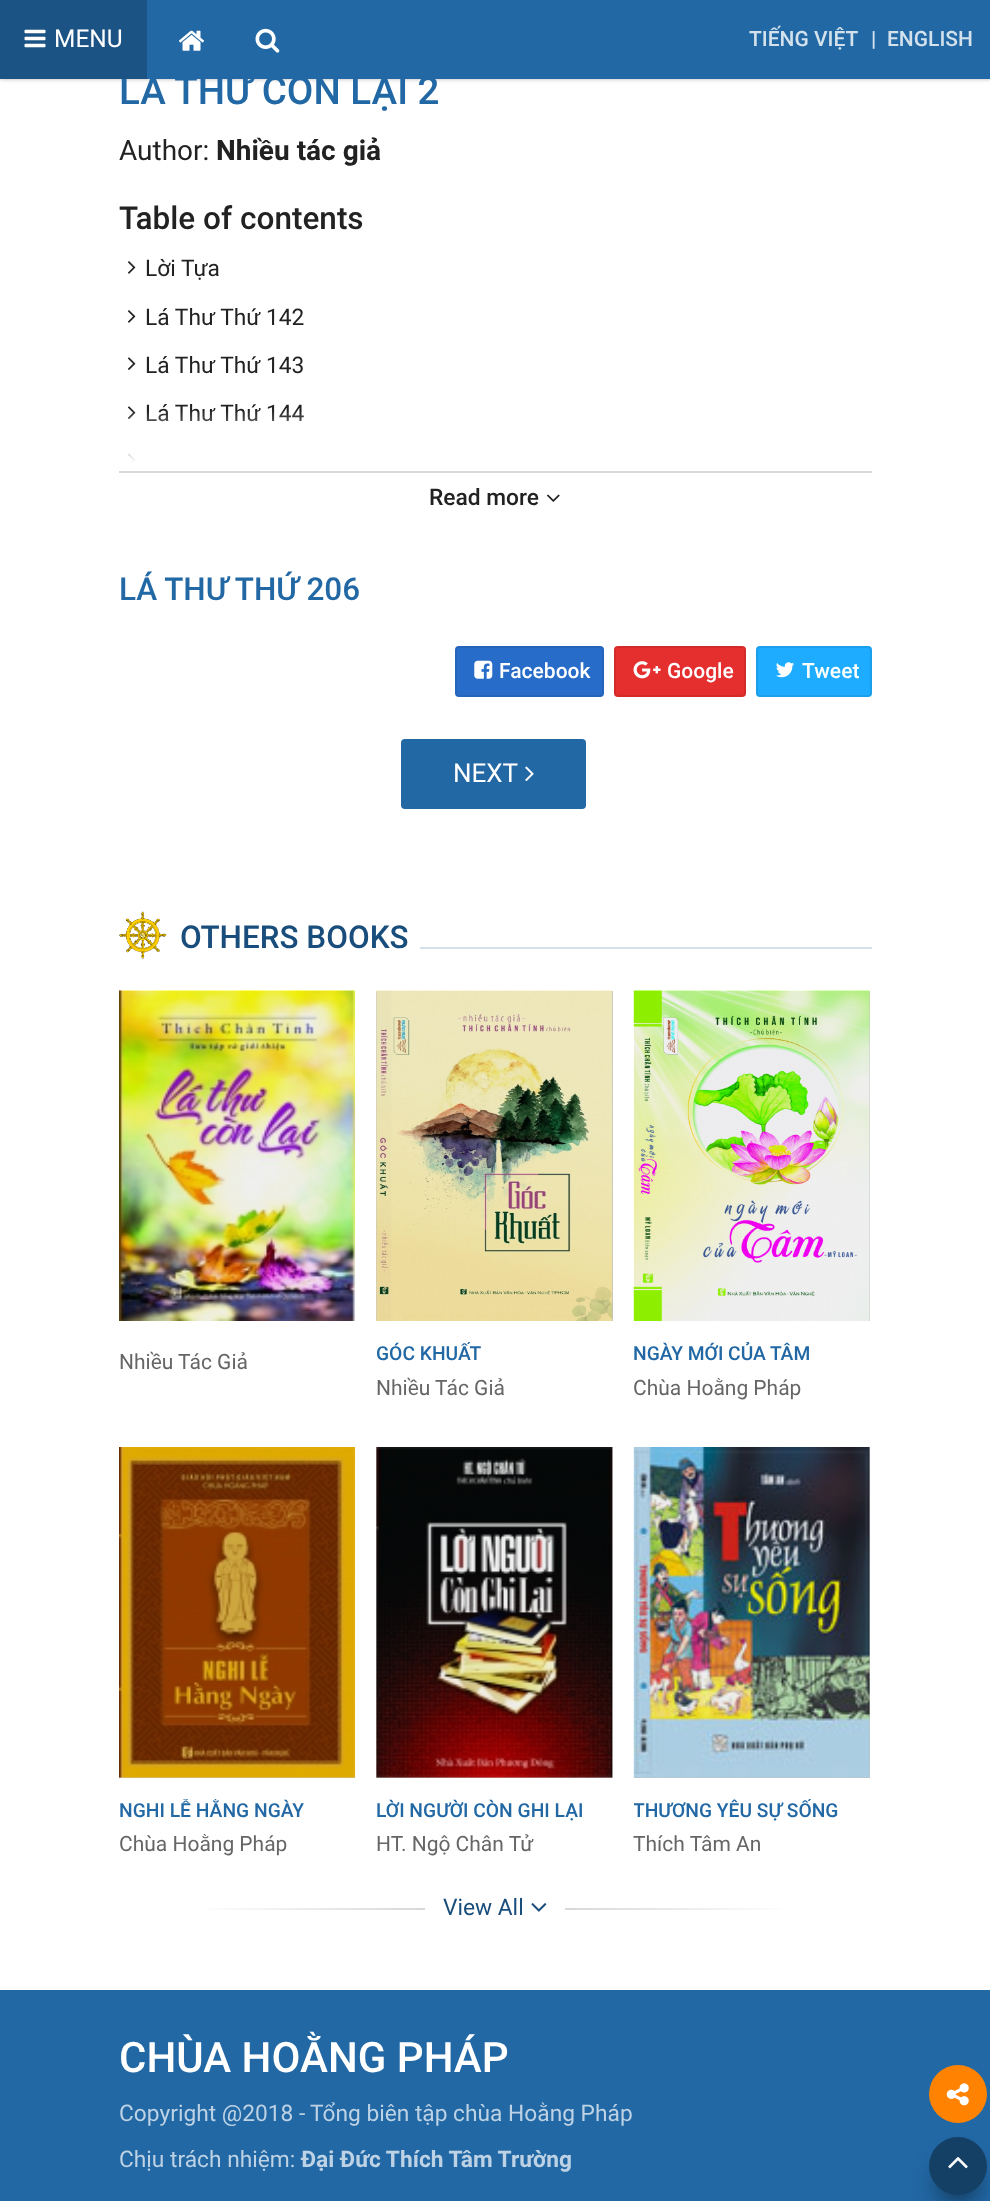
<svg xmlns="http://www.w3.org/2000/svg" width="990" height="2201">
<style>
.a{font:500 21px Roboto;fill:#d3e1ed}
.b{font:500 38.5px Roboto;fill:#2268a5}
.c{font:24.5px Roboto;fill:#fff}
.d{font:28px Roboto;fill:#222}
.e{font:bold 28px Roboto;fill:#222}
.f{font:500 31.5px Roboto;fill:#222}
.g{font:22.75px Roboto;fill:#222}
.h{font:500 22.75px Roboto;fill:#222}
.i{font:500 31.5px Roboto;fill:#2268a5}
.j{font:500 21px Roboto;fill:#fff}
.k{font:26px Roboto;fill:#fff}
.l{font:500 31.5px Roboto;fill:#194d7b}
.m{font:21px Roboto;fill:#666}
.n{font:500 19.25px Roboto;fill:#2268a5}
.o{font:22.75px Roboto;fill:#194d7b}
.p{font:500 42px Roboto;fill:#fff}
.q{font:22.75px Roboto;fill:#bdd2e4}
.r{font:bold 22.75px Roboto;fill:#bdd2e4}
</style>
<defs>
<linearGradient id="g1" gradientUnits="userSpaceOnUse" x1="194" y1="1908" x2="796" y2="1908"><stop offset="0" stop-color="#fff"/><stop offset="0.5" stop-color="#ccc"/><stop offset="1" stop-color="#fff"/></linearGradient>
<linearGradient id="g2" gradientUnits="userSpaceOnUse" x1="495" y1="516" x2="495" y2="410"><stop offset="0" stop-color="#fff"/><stop offset="0.5" stop-color="#fff"/><stop offset="1" stop-color="#fff" stop-opacity="0"/></linearGradient>
<clipPath id="clip1"><path d="M376 1342h237v27H376z"/></clipPath>
<clipPath id="clip2"><path d="M634 1342h236v27H634z"/></clipPath>
<clipPath id="clip3"><path d="M119 1799h236v26H119z"/></clipPath>
<clipPath id="clip4"><path d="M634 1799h236v26H634z"/></clipPath>
</defs>
<rect width="100%" height="100%" fill="#fff"/>
<path fill="#0000004d" filter="blur(2px)" d="M0 0h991v79H0z"/>
<path fill="#2268a5" d="M147 0h843v79H147z"/>
<image href="2.png" x="179" y="30" width="25" height="21"/>
<image href="3.png" x="255" y="28" width="25" height="25"/>
<image href="4.png" x="128" y="261" width="8" height="13"/>
<image href="4.png" x="128" y="310" width="8" height="13"/>
<image href="5.png" x="128" y="357" width="8" height="13"/>
<image href="5.png" x="128" y="406" width="8" height="13"/>
<image href="6.png" x="128" y="453" width="8" height="10"/>
<path fill="#d9d9d9" d="M119 471h753v2H119z"/>
<image href="7.png" x="547" y="494" width="13" height="8"/>
<rect fill="#286cc9" x="455" y="646" width="149" height="51" rx="4"/>
<rect fill="none" stroke="#00000012" stroke-width="2" x="456" y="647" width="147" height="49" rx="3"/>
<image href="8.png" x="474" y="660" width="19" height="19"/>
<rect fill="#e52e2e" x="614" y="646" width="132" height="51" rx="4"/>
<rect fill="none" stroke="#00000012" stroke-width="2" x="615" y="647" width="130" height="49" rx="3"/>
<image href="9.png" x="633" y="661" width="28" height="18"/>
<rect fill="#1dacff" x="756" y="646" width="116" height="51" rx="4"/>
<rect fill="none" stroke="#00000012" stroke-width="2" x="757" y="647" width="114" height="49" rx="3"/>
<image href="10.png" x="776" y="662" width="19" height="16"/>
<rect fill="#2268a5" x="401" y="739" width="185" height="70" rx="4"/>
<image href="11.png" x="525" y="766" width="9" height="16"/>
<image href="12.png" x="119" y="911" width="48" height="48"/>
<path fill="#d3e1ed" d="M420 947h452v2H420z"/>
<image href="13.png" x="119" y="990" width="237" height="331"/>
<path fill="#c0c0c0" d="M376 991h237v330H376z"/>
<image href="14.png" x="376" y="990" width="237" height="331"/>
<path fill="#c0c0c0" d="M869 991h1v330H869z"/>
<image href="15.png" x="633" y="990" width="237" height="331"/>
<path fill="#c0c0c0" d="M119 1777h236v1H119z"/>
<image href="16.png" x="119" y="1447" width="237" height="331"/>
<path fill="#c0c0c0" d="M376 1447h237v331H376z"/>
<image href="17.png" x="376" y="1447" width="237" height="331"/>
<path fill="#c0c0c0" d="M634 1447h236v331H634z"/>
<image href="18.png" x="633" y="1447" width="237" height="331"/>
<path fill="url(#g1)" d="M209 1908h572v2H209z"/>
<path fill="#fff" d="M425 1908h140v2H425z"/>
<image href="19.png" x="531" y="1903" width="16" height="9"/>
<path fill="#2268a5" d="M0 1990h990v211H0z"/>
<circle fill="#ff8300" cx="958" cy="2094" r="29"/>
<image href="20.png" x="946" y="2083" width="23" height="23"/>
<rect fill="#00000080" filter="blur(13px)" x="938" y="2163" width="40" height="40" rx="20"/>
<circle fill="#154066" cx="958" cy="2166" r="29"/>
<image href="21.png" x="948" y="2157" width="20" height="12"/>
<text class="a" x="749" y="46">TIẾNG VIỆT</text>
<text class="a" x="871" y="46">|</text>
<text class="a" x="887" y="46">ENGLISH</text>
<text class="b" x="119" y="104">LÁ THƯ CÒN LẠI 2</text>
<path fill="#1b5384" d="M0 0h147v79H0z"/>
<text class="c" x="54" y="47">MENU</text>
<image href="1.png" x="24" y="29" width="22" height="19"/>
<text class="d" x="119" y="160">Author:</text>
<text class="e" x="216" y="160">Nhiều tác giả</text>
<text class="f" x="119" y="229">Table of contents</text>
<text class="g" x="145" y="276">Lời Tựa</text>
<text class="g" x="145" y="325">Lá Thư Thứ 142</text>
<text class="g" x="145" y="373">Lá Thư Thứ 143</text>
<text class="g" x="145" y="421">Lá Thư Thứ 144</text>
<path fill="url(#g2)" d="M128 411h176v52H128z"/>
<text class="h" x="429" y="505">Read more</text>
<text class="i" x="119" y="600">LÁ THƯ THỨ 206</text>
<text class="j" x="499" y="678">Facebook</text>
<text class="j" x="667" y="678">Google</text>
<text class="j" x="802" y="678">Tweet</text>
<text class="k" x="453" y="782">NEXT</text>
<text class="l" x="180" y="948">OTHERS BOOKS</text>
<text class="m" x="119" y="1369">Nhiều Tác Giả</text>
<g clip-path="url(#clip1)">
<text class="n" x="376" y="1360">GÓC KHUẤT</text>
</g>
<text class="m" x="376" y="1395">Nhiều Tác Giả</text>
<g clip-path="url(#clip2)">
<text class="n" x="633" y="1360">NGÀY MỚI CỦA TÂM</text>
</g>
<text class="m" x="633" y="1395">Chùa Hoằng Pháp</text>
<g clip-path="url(#clip3)">
<text class="n" x="119" y="1817">NGHI LỄ HẰNG NGÀY</text>
</g>
<text class="m" x="119" y="1851">Chùa Hoằng Pháp</text>
<text class="n" x="376" y="1817">LỜI NGƯỜI CÒN GHI LẠI</text>
<text class="m" x="376" y="1851">HT. Ngộ Chân Tử</text>
<g clip-path="url(#clip4)">
<text class="n" x="633" y="1817">THƯƠNG YÊU SỰ SỐNG</text>
</g>
<text class="m" x="633" y="1851">Thích Tâm An</text>
<text class="o" x="443" y="1915">View All</text>
<text class="p" x="119" y="2072">CHÙA HOẰNG PHÁP</text>
<text class="q" x="119" y="2121">Copyright @2018 -</text>
<text class="q" x="310" y="2121">Tổng biên tập chùa Hoằng Pháp</text>
<text class="q" x="119" y="2167">Chịu trách nhiệm:</text>
<text class="r" x="301" y="2167">Đại Đức Thích Tâm Trường</text>
</svg>
